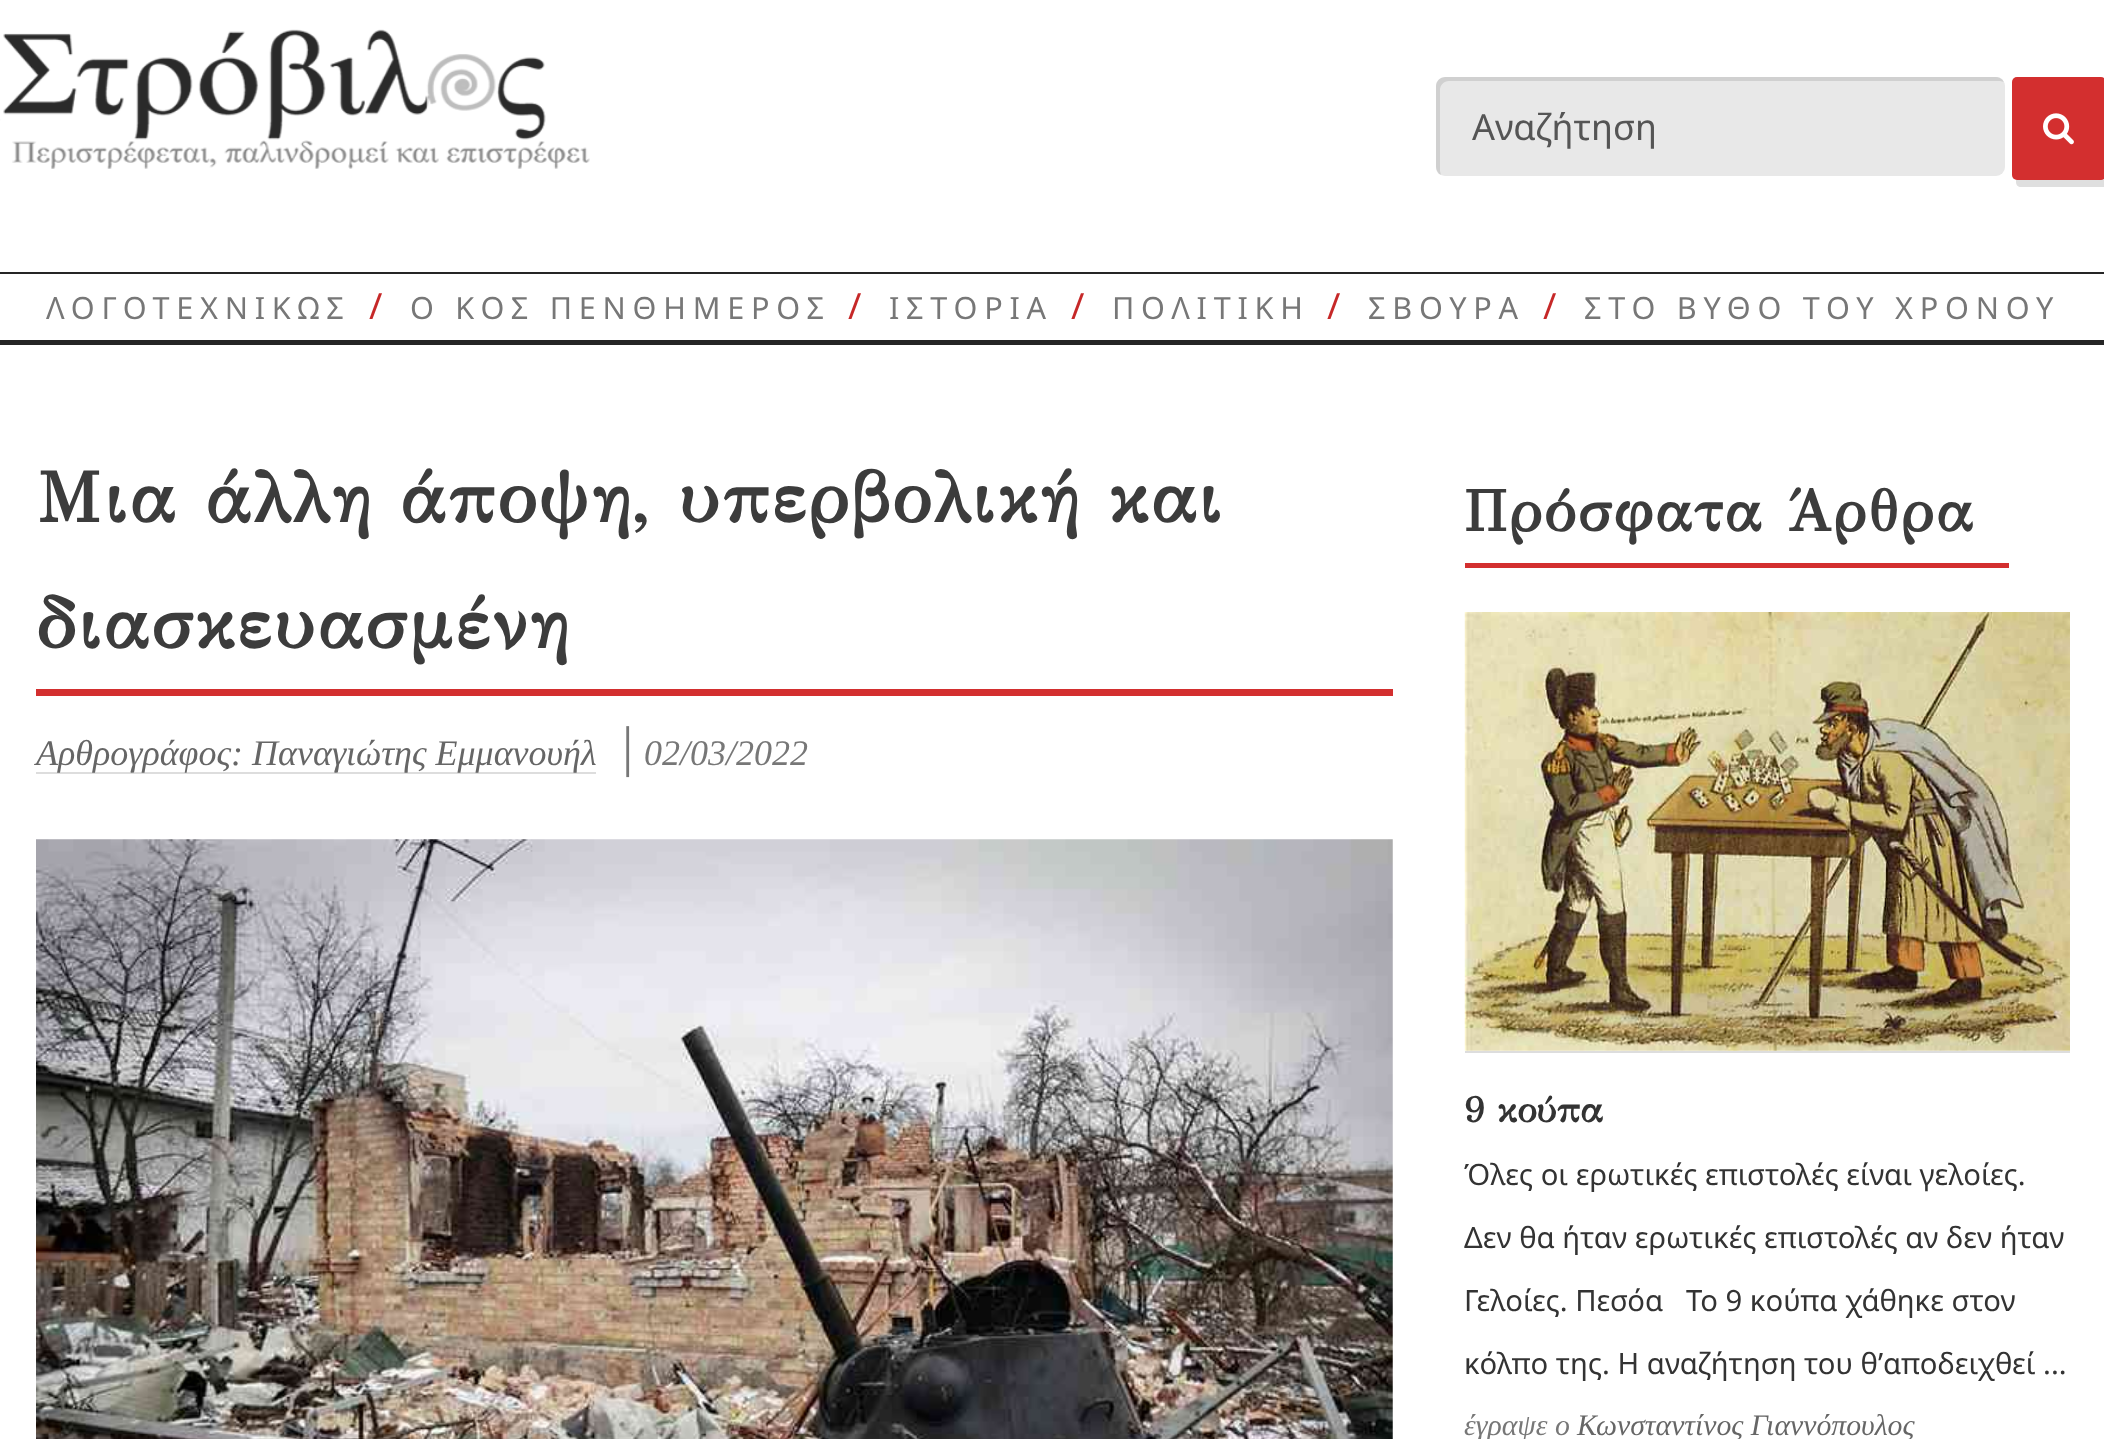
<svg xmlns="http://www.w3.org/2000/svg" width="2104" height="1439">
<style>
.a{font:36px Noto Sans;fill:#555}
.b{font:30.6px Noto Sans;letter-spacing:6.75px;fill:#777}
.c{font:36px Noto Sans;fill:#c62828}
.d{font:bold 72px GFS Didot;letter-spacing:2.7px;fill:#3c3c3c}
.e{font:italic 36px Liberation Serif;fill:#666}
.f{font:italic 56px Liberation Serif;fill:#777}
.g{font:italic 36px Liberation Serif;fill:#777}
.h{font:bold 58.5px GFS Didot;letter-spacing:2.7px;fill:#3c3c3c}
.i{font:bold 36px GFS Didot;fill:#333}
.j{font:29.25px Noto Sans;fill:#333}
.k{font:italic 29.75px Liberation Serif;fill:#777}
.l{font:italic 29.75px Liberation Serif;fill:#666}
</style>
<rect width="100%" height="100%" fill="#fff"/>
<image href="1.png" x="0" y="29" width="590" height="140"/>
<rect fill="#e8e8e8" x="1436" y="77" width="569" height="99" rx="9"/>
<path fill="#0000001a" d="M1449 81h551l4 1c-1-3-4-5-8-5h-551c-5 0-9 4-9 9v81c0 4 2 7 5 8l-1-4v-81c0-5 4-9 9-9z"/>
<path fill="#dfdfdf" d="M2016 180v2c0 3 2 5 5 5h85c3 0 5-2 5-5v-94c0-3-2-5-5-5v93c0 2-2 4-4 4z"/>
<rect fill="#d32f2f" x="2012" y="77" width="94" height="103" rx="5"/>
<image href="2.png" x="2043" y="113" width="31" height="32"/>
<path fill="#252525" d="M0 272h2104v2H0z"/>
<path fill="#252525" d="M0 340h2104v5H0z"/>
<path fill="#d32f2f" d="M36 689h1357v7H36z"/>
<path fill="#ddd" d="M36 772h560v2H36z"/>
<image href="3.png" x="36" y="839" width="1357" height="600"/>
<path fill="#d32f2f" d="M1465 563h544v5H1465z"/>
<path fill="#ddd" d="M1465 1051h605v2H1465z"/>
<image href="4.png" x="1464" y="612" width="606" height="439"/>
<text class="a" x="1472" y="140">Αναζήτηση</text>
<text class="b" x="46" y="319">ΛΟΓΟΤΕΧΝΙΚΩΣ</text>
<text class="c" x="369" y="319">/</text>
<text class="b" x="410" y="319">Ο ΚΟΣ ΠΕΝΘΗΜΕΡΟΣ</text>
<text class="c" x="848" y="319">/</text>
<text class="b" x="889" y="319">ΙΣΤΟΡΙΑ</text>
<text class="c" x="1071" y="319">/</text>
<text class="b" x="1112" y="319">ΠΟΛΙΤΙΚΗ</text>
<text class="c" x="1327" y="319">/</text>
<text class="b" x="1368" y="319">ΣΒΟΥΡΑ</text>
<text class="c" x="1543" y="319">/</text>
<text class="b" x="1584" y="319">ΣΤΟ ΒΥΘΟ ΤΟΥ ΧΡΟΝΟΥ</text>
<text class="d" x="36" y="522">Μια άλλη άποψη, υπερβολική και</text>
<text class="d" x="36" y="648">διασκευασμένη</text>
<text class="e" x="36" y="765">Αρθρογράφος: Παναγιώτης Εμμανουήλ</text>
<text class="f" x="619" y="765">|</text>
<text class="g" x="644" y="765">02/03/2022</text>
<text class="h" x="1464" y="531">Πρόσφατα Άρθρα</text>
<text class="i" x="1464" y="1122">9 κούπα</text>
<text class="j" x="1464" y="1185">Όλες οι ερωτικές επιστολές είναι γελοίες.</text>
<text class="j" x="1464" y="1248">Δεν θα ήταν ερωτικές επιστολές αν δεν ήταν</text>
<text class="j" x="1464" y="1311">Γελοίες. Πεσόα</text>
<text class="j" x="1686" y="1311">Το 9 κούπα χάθηκε στον</text>
<text class="j" x="1464" y="1374">κόλπο της. Η αναζήτηση του θ’αποδειχθεί ...</text>
<text class="k" x="1464" y="1435">έγραψε ο</text>
<text class="l" x="1577" y="1435">Κωνσταντίνος Γιαννόπουλος</text>
</svg>
